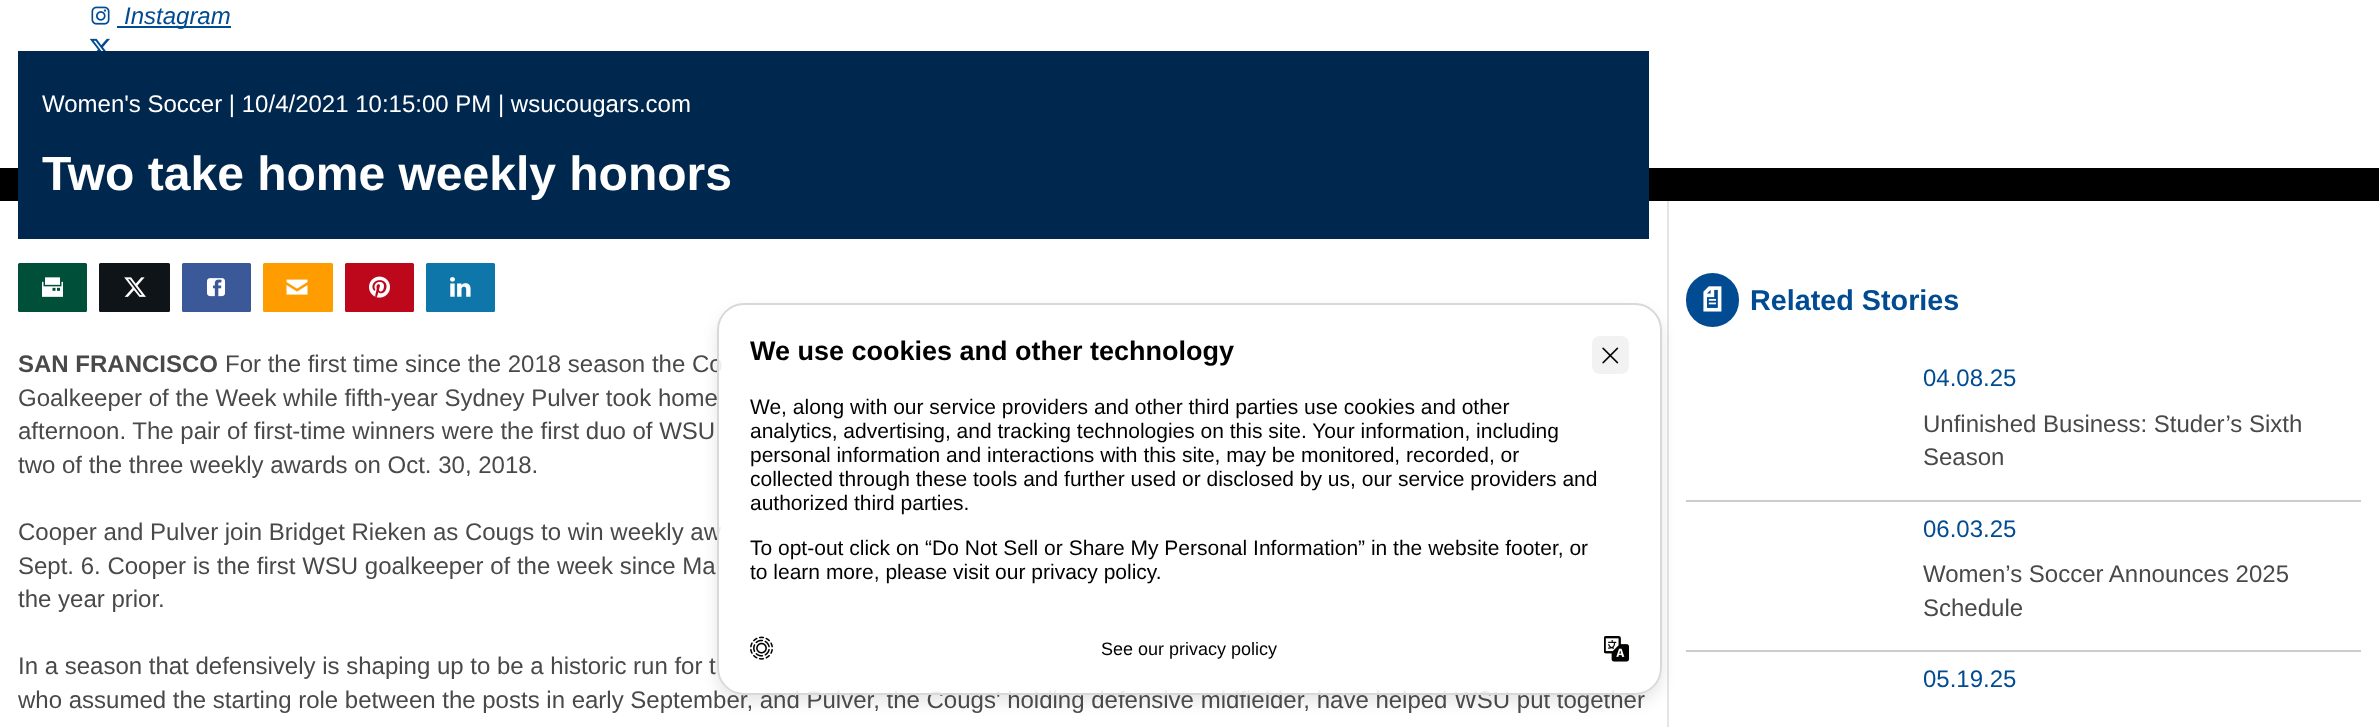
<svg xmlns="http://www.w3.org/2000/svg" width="2379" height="727">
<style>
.a{font:italic 24px Liberation Sans;fill:#004b91}
.b{font:24px Liberation Sans;fill:#fff}
.c{font:bold 48px Liberation Sans;fill:#fff}
.d{font:bold 24px Liberation Sans;fill:#494949}
.e{font:24px Liberation Sans;fill:#494949}
.f{font:bold 28.75px Liberation Sans;fill:#004b91}
.g{font:24px Liberation Sans;fill:#004b91}
.h{font:bold 27px Liberation Sans;fill:#010100}
.i{font:21px Liberation Sans;fill:#010100}
.j{font:18px Liberation Sans;fill:#010100}
</style>
<defs>
<clipPath id="clip1"><path d="M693 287h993v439h-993zm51 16h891c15 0 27 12 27 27v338c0 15-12 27-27 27h-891c-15 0-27-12-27-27v-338c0-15 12-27 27-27z" clip-rule="evenodd"/></clipPath>
</defs>
<rect width="100%" height="100%" fill="#fff"/>
<image href="1.png" x="91" y="6" width="19" height="19"/>
<path fill="#004b91" d="M117 26h114v2H117z"/>
<image href="2.png" x="89" y="38" width="21" height="13"/>
<path fill="#000" d="M0 168h2379v33H0z"/>
<path fill="#00274d" d="M18 51h1631v188H18z"/>
<rect fill="#004f39" x="18" y="263" width="69" height="49" rx="1.5"/>
<image href="3.png" x="42" y="277" width="21" height="20"/>
<rect fill="#0f1419" x="99" y="263" width="71" height="49" rx="1.5"/>
<image href="4.png" x="124" y="277" width="22" height="20"/>
<rect fill="#3b5998" x="182" y="263" width="69" height="49" rx="1.5"/>
<image href="5.png" x="207" y="278" width="18" height="19"/>
<rect fill="#ff9c00" x="263" y="263" width="70" height="49" rx="1.5"/>
<image href="6.png" x="286" y="279" width="22" height="16"/>
<rect fill="#bd081c" x="345" y="263" width="69" height="49" rx="1.5"/>
<image href="7.png" x="369" y="276" width="21" height="22"/>
<rect fill="#0e76a8" x="426" y="263" width="69" height="49" rx="1.5"/>
<image href="8.png" x="450" y="277" width="21" height="20"/>
<path fill="#e5e5e5" d="M1667 201h2v526H1667z"/>
<rect fill="#004b91" x="1686" y="273" width="53" height="54" rx="26.5"/>
<image href="9.png" x="1703" y="286" width="19" height="26"/>
<path fill="#ccc" d="M1686 500h675v2H1686z"/>
<path fill="#ccc" d="M1686 650h675v2H1686z"/>
<g clip-path="url(#clip1)">
<rect fill="#0000001a" filter="blur(7.5px)" x="717" y="311" width="945" height="391" rx="27"/>
</g>
<text class="a" x="124" y="24">Instagram</text>
<text class="b" x="42" y="112">Women's Soccer | 10/4/2021 10:15:00 PM | wsucougars.com</text>
<text class="c" x="42" y="190">Two take home weekly honors</text>
<text class="d" x="18" y="372">SAN FRANCISCO</text>
<text class="e" x="225" y="372">For the first time since the 2018 season the Co</text>
<text class="e" x="18" y="406">Goalkeeper of the Week while fifth-year Sydney Pulver took home</text>
<text class="e" x="18" y="439">afternoon. The pair of first-time winners were the first duo of WSU</text>
<text class="e" x="18" y="473">two of the three weekly awards on Oct. 30, 2018.</text>
<text class="e" x="18" y="540">Cooper and Pulver join Bridget Rieken as Cougs to win weekly aw</text>
<text class="e" x="18" y="574">Sept. 6. Cooper is the first WSU goalkeeper of the week since Ma</text>
<text class="e" x="18" y="607">the year prior.</text>
<text class="e" x="18" y="674">In a season that defensively is shaping up to be a historic run for t</text>
<text class="e" x="18" y="708">who assumed the starting role between the posts in early September, and Pulver, the Cougs' holding defensive midfielder, have helped WSU put together</text>
<text class="f" x="1750" y="310">Related Stories</text>
<text class="g" x="1923" y="386">04.08.25</text>
<text class="e" x="1923" y="432">Unfinished Business: Studer’s Sixth</text>
<text class="e" x="1923" y="465">Season</text>
<text class="g" x="1923" y="537">06.03.25</text>
<text class="e" x="1923" y="582">Women’s Soccer Announces 2025</text>
<text class="e" x="1923" y="616">Schedule</text>
<text class="g" x="1923" y="687">05.19.25</text>
<rect fill="#ffffffe6" stroke="#d8d8d8" stroke-width="2" x="718" y="304" width="943" height="390" rx="26"/>
<text class="h" x="750" y="360">We use cookies and other technology</text>
<text class="i" x="750" y="414">We, along with our service providers and other third parties use cookies and other</text>
<text class="i" x="750" y="438">analytics, advertising, and tracking technologies on this site. Your information, including</text>
<text class="i" x="750" y="462">personal information and interactions with this site, may be monitored, recorded, or</text>
<text class="i" x="750" y="486">collected through these tools and further used or disclosed by us, our service providers and</text>
<text class="i" x="750" y="510">authorized third parties.</text>
<text class="i" x="750" y="555">To opt-out click on “Do Not Sell or Share My Personal Information” in the website footer, or</text>
<text class="i" x="750" y="579">to learn more, please visit our privacy policy.</text>
<rect fill="#f2f2f2" x="1592" y="336" width="37" height="38" rx="8"/>
<image href="10.png" x="1602" y="347" width="17" height="17"/>
<image href="11.png" x="750" y="636" width="23" height="24"/>
<text class="j" x="1101" y="655">See our privacy policy</text>
<image href="12.png" x="1604" y="636" width="25" height="26"/>
</svg>
